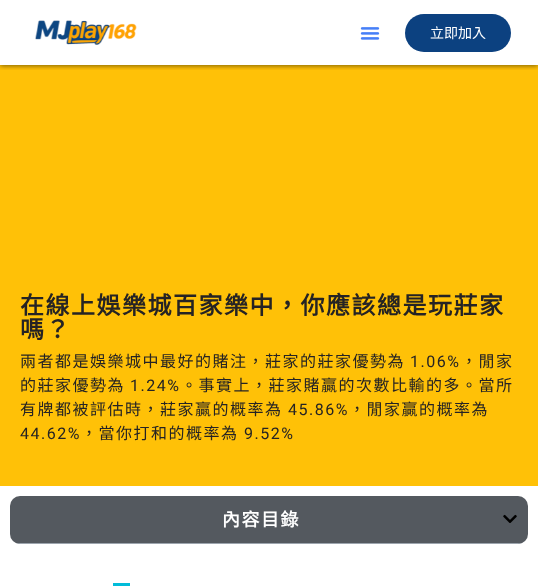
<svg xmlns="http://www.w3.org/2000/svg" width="538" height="586">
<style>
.a{font:14px Noto Sans CJK TC;fill:#fff}
.b{font:bold 24px Noto Sans CJK TC;letter-spacing:1.5px;fill:#252324}
.c{font:16px Noto Sans CJK TC;letter-spacing:1.5px;fill:#252324}
.d{font:16px Roboto;letter-spacing:1.5px;fill:#252324}
.e{font:bold 18px Noto Sans CJK TC;letter-spacing:1.5px;fill:#fff}
</style>
<defs>
<clipPath id="clip1"><path d="M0 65h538v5H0z"/></clipPath>
<clipPath id="clip2"><rect x="10" y="496" width="518" height="48" rx="10"/></clipPath>
</defs>
<rect width="100%" height="100%" fill="#fff"/>
<path fill="#ffc107" d="M0 65h538v421H0z"/>
<g clip-path="url(#clip1)">
<path fill="#00000080" filter="blur(2.5px)" d="M0 1h538v65H0z"/>
</g>
<image href="1.png" x="35" y="20" width="102" height="25"/>
<image href="2.png" x="360" y="27" width="20" height="13"/>
<rect fill="#0c4180" x="405" y="14" width="106" height="38" rx="19"/>
<rect fill="#54595f" x="10" y="496" width="518" height="48" rx="10"/>
<g clip-path="url(#clip2)">
<path fill="#9da5ae" d="M10 543h518v1H10z"/>
</g>
<image href="3.png" x="503" y="514" width="14" height="9"/>
<path fill="#01bcd9" d="M113 583h17v3H113z"/>
<text class="a" x="430" y="38">立即加入</text>
<text class="b" x="20" y="314">在線上娛樂城百家樂中，你應該總是玩莊家</text>
<text class="b" x="20" y="338">嗎？</text>
<text class="c" x="20" y="367">兩者都是娛樂城中最好的賭注，莊家的莊家優勢為</text>
<text class="d" x="410" y="367">1.06%</text>
<text class="c" x="461" y="367">，閒家</text>
<text class="c" x="20" y="391">的莊家優勢為</text>
<text class="d" x="130" y="391">1.24%</text>
<text class="c" x="181" y="391">。事實上，莊家賭贏的次數比輸的多。當所</text>
<text class="c" x="20" y="415">有牌都被評估時，莊家贏的概率為</text>
<text class="d" x="288" y="415">45.86%</text>
<text class="c" x="349" y="415">，閒家贏的概率為</text>
<text class="d" x="20" y="439">44.62%</text>
<text class="c" x="81" y="439">，當你打和的概率為</text>
<text class="d" x="244" y="439">9.52%</text>
<text class="e" x="222" y="526">內容目錄</text>
</svg>
